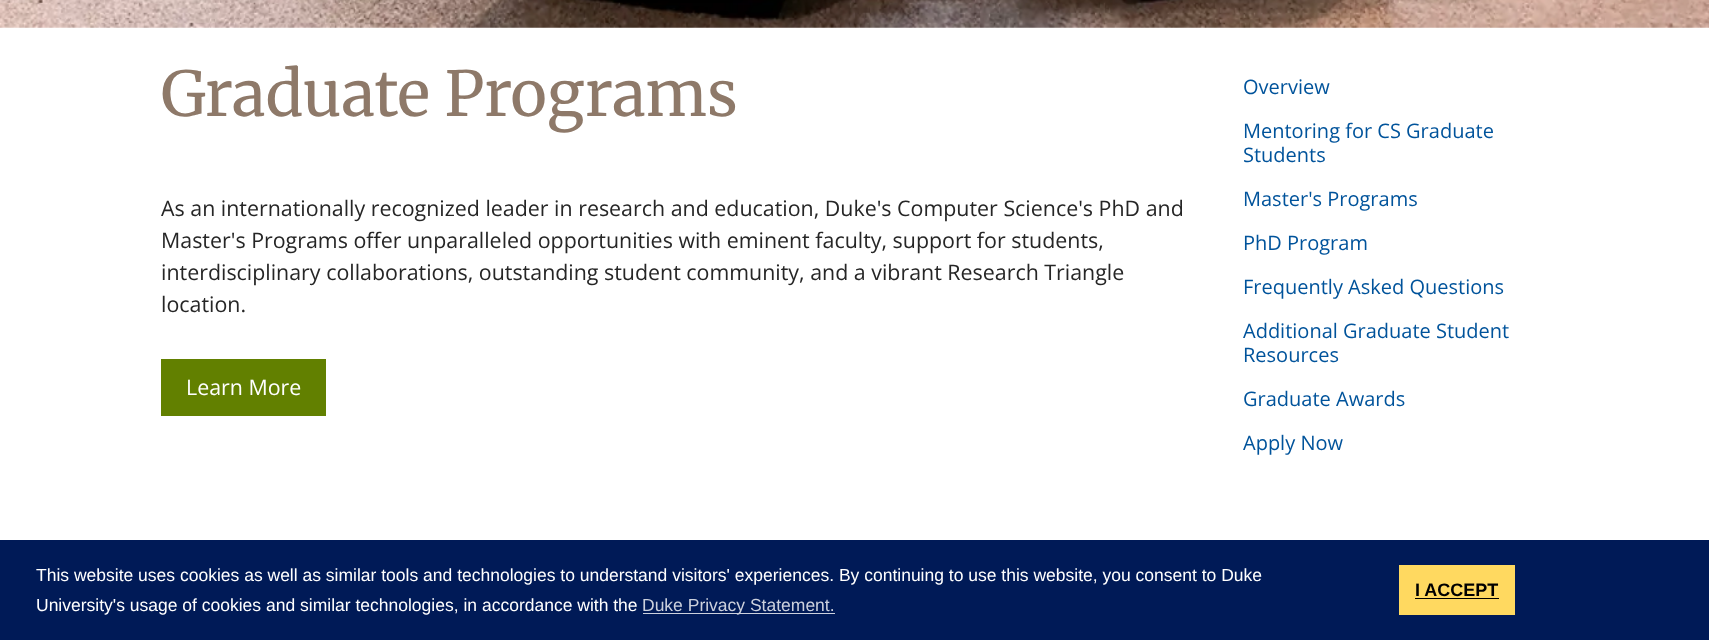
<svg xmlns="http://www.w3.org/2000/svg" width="1709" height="640">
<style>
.a{font:62px Merriweather;fill:#8e7969}
.b{font:21.4px Open Sans;fill:#262626}
.c{font:21.4px Open Sans;fill:#fff}
.d{font:20px Open Sans;fill:#00539b}
.e{font:17.5px Liberation Sans;fill:#fff}
.f{font:17.5px Liberation Sans;fill:#ccd1dd}
.g{font:bold 18px Liberation Sans;fill:#000}
</style>
<rect width="100%" height="100%" fill="#fff"/>
<image href="1.png" x="0" y="0" width="1709" height="28"/>
<path fill="#628000" d="M161 359h165v57H161z"/>
<path fill="#001a57" d="M0 540h1709v100H0z"/>
<path fill="#ccd1dd" d="M643 613h192v1H643z"/>
<path fill="#ffd960" d="M1399 565h116v50H1399z"/>
<path fill="#000" d="M1415 598h84v1H1415z"/>
<text class="a" x="161" y="116">Graduate Programs</text>
<text class="b" x="161" y="216">As an internationally recognized leader in research and education, Duke's Computer Science's PhD and</text>
<text class="b" x="161" y="248">Master's Programs offer unparalleled opportunities with eminent faculty, support for students,</text>
<text class="b" x="161" y="280">interdisciplinary collaborations, outstanding student community, and a vibrant Research Triangle</text>
<text class="b" x="161" y="312">location.</text>
<text class="c" x="186" y="395">Learn More</text>
<text class="d" x="1243" y="94">Overview</text>
<text class="d" x="1243" y="138">Mentoring for CS Graduate</text>
<text class="d" x="1243" y="162">Students</text>
<text class="d" x="1243" y="206">Master's Programs</text>
<text class="d" x="1243" y="250">PhD Program</text>
<text class="d" x="1243" y="294">Frequently Asked Questions</text>
<text class="d" x="1243" y="338">Additional Graduate Student</text>
<text class="d" x="1243" y="362">Resources</text>
<text class="d" x="1243" y="406">Graduate Awards</text>
<text class="d" x="1243" y="450">Apply Now</text>
<text class="e" x="36" y="581">This website uses cookies as well as similar tools and technologies to understand visitors' experiences. By continuing to use this website, you consent to Duke</text>
<text class="e" x="36" y="611">University's usage of cookies and similar technologies, in accordance with the</text>
<text class="f" x="642" y="611">Duke Privacy Statement.</text>
<text class="g" x="1415" y="596">I ACCEPT</text>
</svg>
